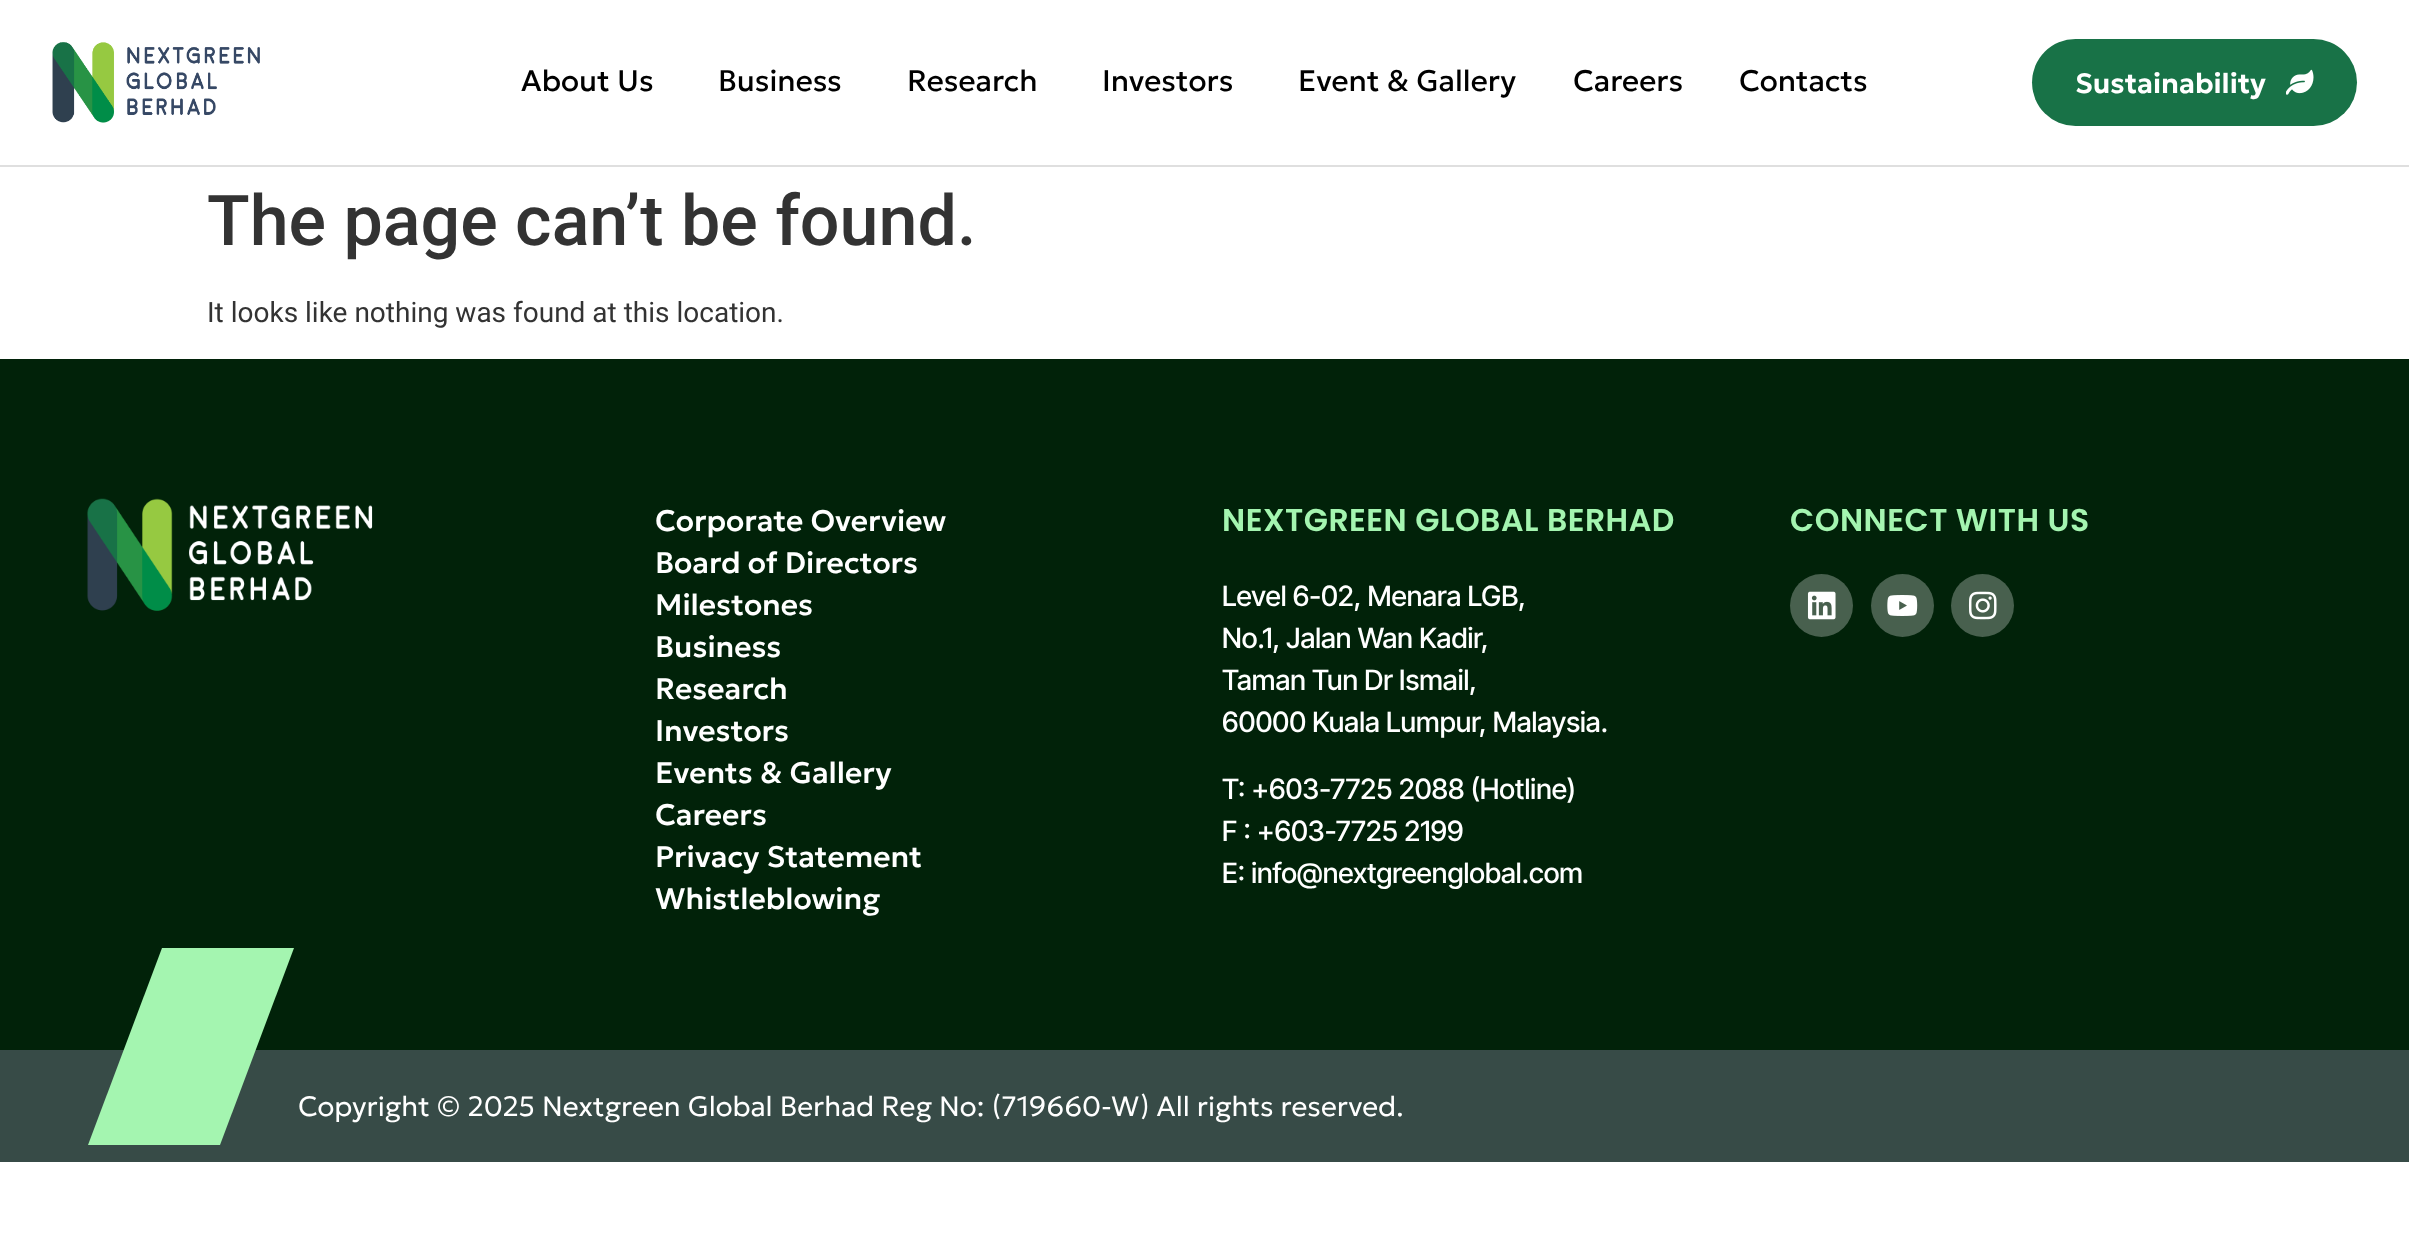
<svg xmlns="http://www.w3.org/2000/svg" width="2409" height="1250">
<style>
.a{font:29.75px Geologica;fill:#000}
.b{font:600 28px Geologica;fill:#fff}
.c{font:500 70px Roboto;fill:#333}
.d{font:28px Roboto;fill:#333}
.e{font:500 29.75px Geologica;fill:#fff}
.f{font:600 31.5px Poppins;letter-spacing:0.5px;fill:#a4f5b0}
.g{font:500 28px Inter Tight;fill:#fff}
.h{font:300 28px Geologica;fill:#fff}
</style>
<rect width="100%" height="100%" fill="#fff"/>
<path fill="#dfdfdf" d="M0 165h2409v2H0z"/>
<image href="1.png" x="52" y="42" width="208" height="81"/>
<rect fill="#187247" x="2032" y="39" width="325" height="87" rx="43.5"/>
<image href="2.png" x="2286" y="69" width="28" height="26"/>
<path fill="#012209" d="M0 359h2409v691H0z"/>
<image href="3.png" x="87" y="498" width="286" height="113"/>
<circle fill="#48604e" cx="1821.5" cy="605.5" r="31.5"/>
<image href="4.png" x="1807" y="591" width="29" height="29"/>
<circle fill="#48604e" cx="1902.5" cy="605.5" r="31.5"/>
<image href="5.png" x="1887" y="595" width="31" height="21"/>
<circle fill="#48604e" cx="1982.5" cy="605.5" r="31.5"/>
<image href="6.png" x="1968" y="591" width="29" height="29"/>
<path fill="#374b47" d="M0 1050h2409v112H0z"/>
<path fill="#a4f5b0" fill-rule="evenodd" d="M162 948l-74 197h132l74-197z"/>
<text class="a" x="521" y="91">About Us</text>
<text class="a" x="718" y="91">Business</text>
<text class="a" x="907" y="91">Research</text>
<text class="a" x="1102" y="91">Investors</text>
<text class="a" x="1298" y="91">Event &amp; Gallery</text>
<text class="a" x="1573" y="91">Careers</text>
<text class="a" x="1739" y="91">Contacts</text>
<text class="b" x="2075" y="93">Sustainability</text>
<text class="c" x="207" y="245">The page can’t be found.</text>
<text class="d" x="207" y="322">It looks like nothing was found at this location.</text>
<text class="e" x="655" y="531">Corporate Overview</text>
<text class="e" x="655" y="573">Board of Directors</text>
<text class="e" x="655" y="615">Milestones</text>
<text class="e" x="655" y="657">Business</text>
<text class="e" x="655" y="699">Research</text>
<text class="e" x="655" y="741">Investors</text>
<text class="e" x="655" y="783">Events &amp; Gallery</text>
<text class="e" x="655" y="825">Careers</text>
<text class="e" x="655" y="867">Privacy Statement</text>
<text class="e" x="655" y="909">Whistleblowing</text>
<text class="f" x="1222" y="531">NEXTGREEN GLOBAL BERHAD</text>
<text class="g" x="1222" y="606">Level 6-02, Menara LGB,</text>
<text class="g" x="1222" y="648">No.1, Jalan Wan Kadir,</text>
<text class="g" x="1222" y="690">Taman Tun Dr Ismail,</text>
<text class="g" x="1222" y="732">60000 Kuala Lumpur, Malaysia.</text>
<text class="g" x="1222" y="799">T: +603-7725 2088 (Hotline)</text>
<text class="g" x="1222" y="841">F : +603-7725 2199</text>
<text class="g" x="1222" y="883">E: info@nextgreenglobal.com</text>
<text class="f" x="1790" y="531">CONNECT WITH US</text>
<text class="h" x="298" y="1116">Copyright © 2025 Nextgreen Global Berhad Reg No: (719660-W) All rights reserved.</text>
</svg>
